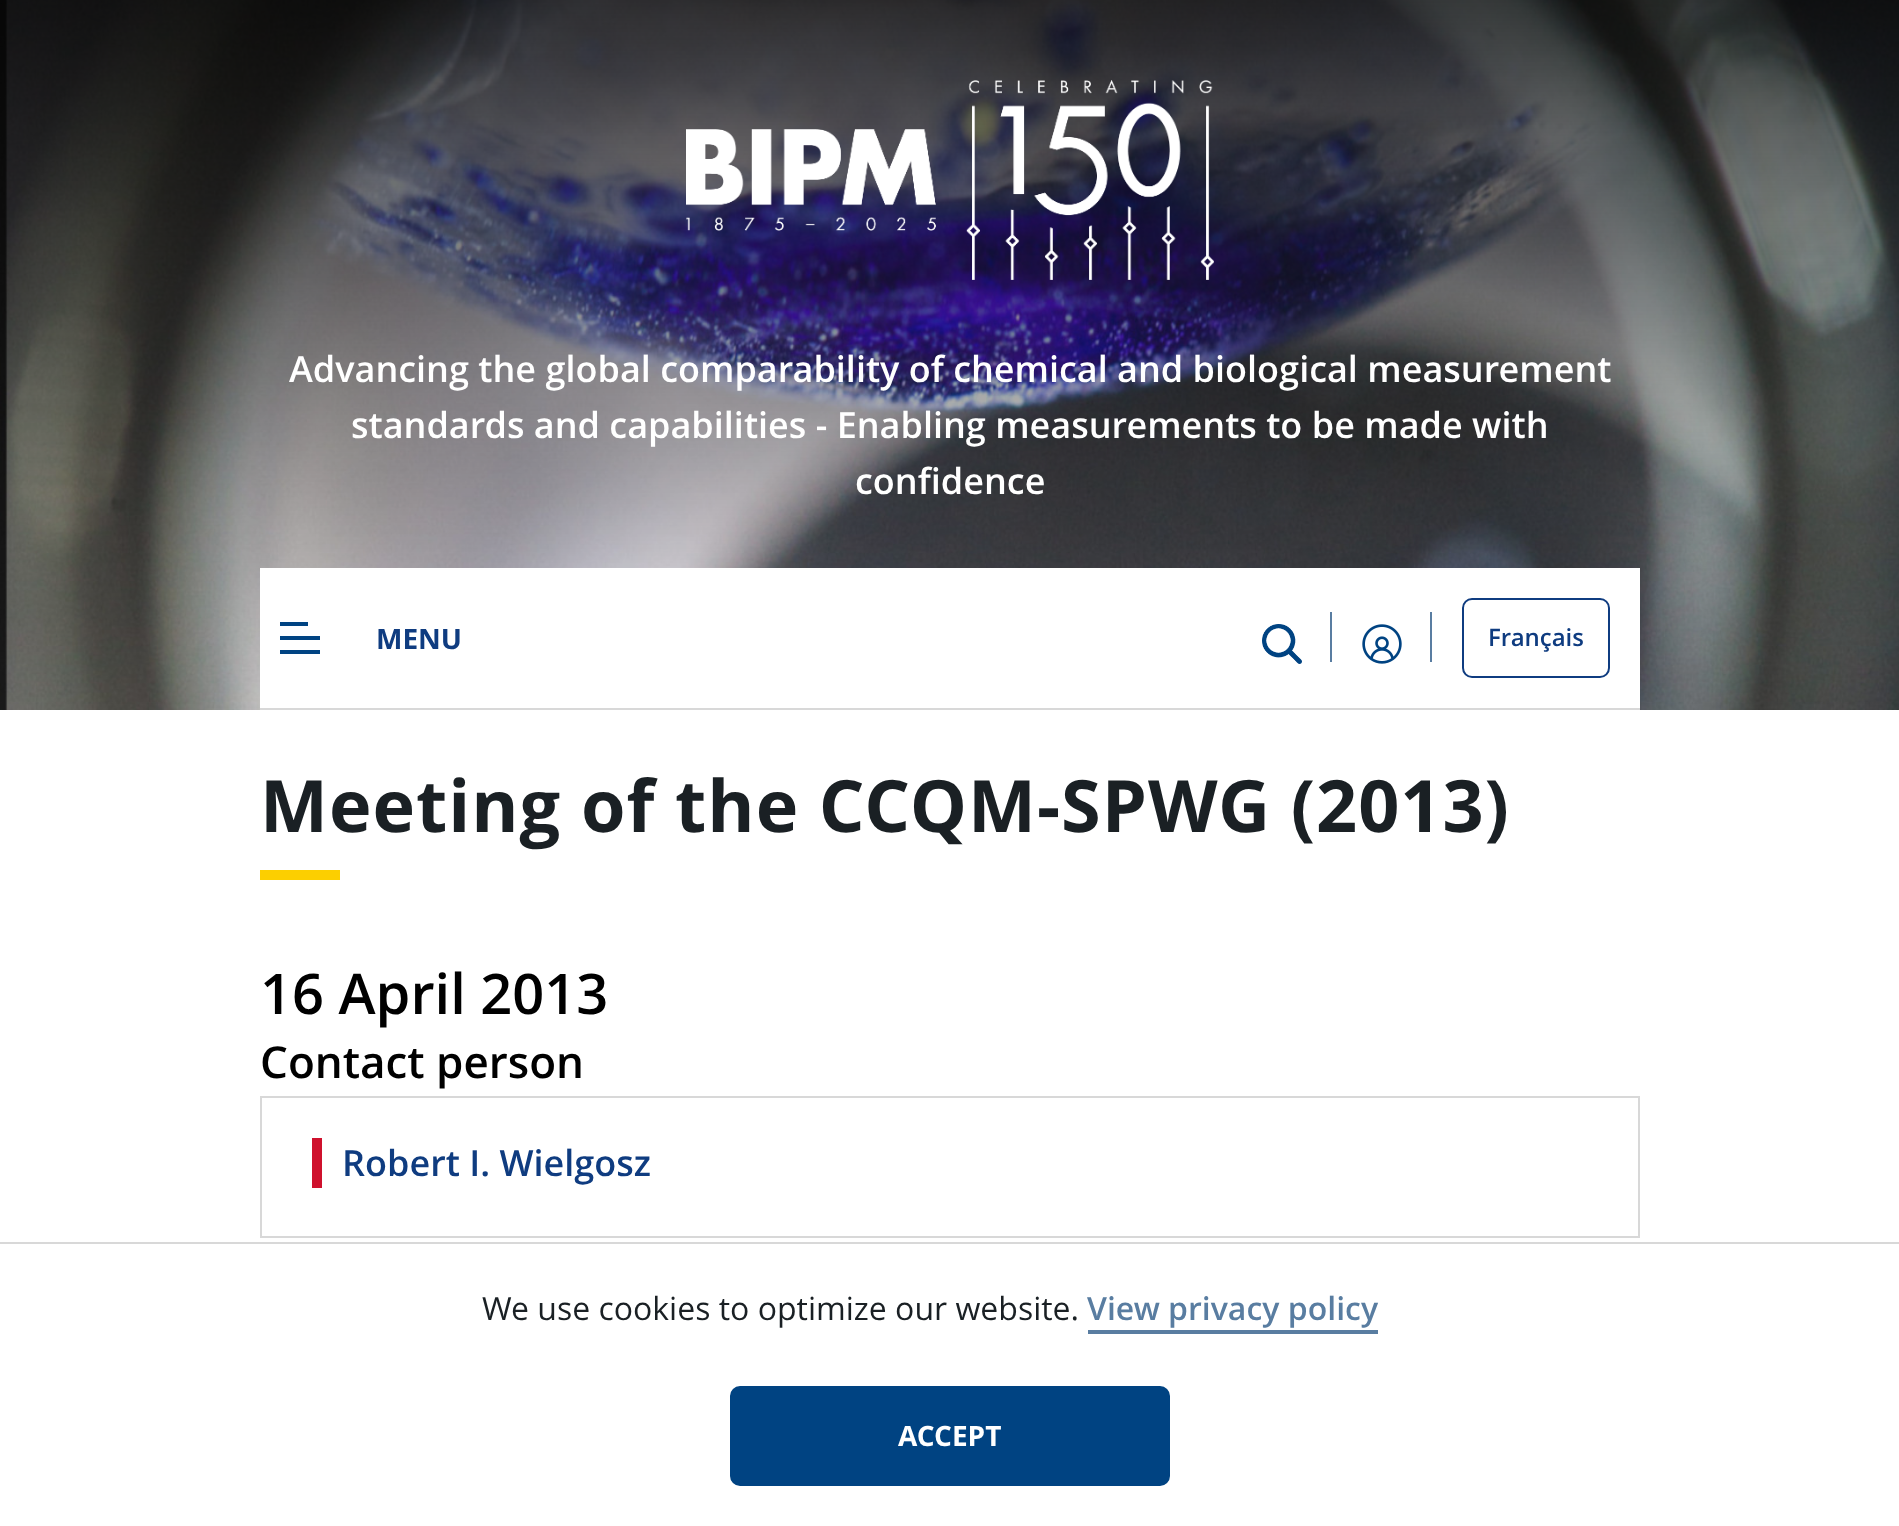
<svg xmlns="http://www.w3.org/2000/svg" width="1899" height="1526">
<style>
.a{font:600 36px Open Sans;fill:#fff}
.b{font:bold 28px Open Sans;fill:#0f3c80}
.c{font:600 24px Open Sans;fill:#0f3c80}
.d{font:bold 72px Open Sans;letter-spacing:1px;fill:#1a2024}
.e{font:600 56px Open Sans;fill:#000}
.f{font:600 44px Open Sans;fill:#000}
.g{font:600 36px Open Sans;fill:#0f3c80}
.h{font:32px Open Sans;fill:#1a2024}
.i{font:600 32px Open Sans;fill:#597da1}
.j{font:bold 28px Open Sans;fill:#fff}
</style>
<rect width="100%" height="100%" fill="#fff"/>
<image href="1.png" x="0" y="0" width="1899" height="710"/>
<image href="2.png" x="686" y="80" width="528" height="200"/>
<path fill="#fff" d="M260 568h1380v140H260z"/>
<path fill="#d8d8d8" d="M260 708h1380v2H260z"/>
<path fill="#004382" fill-rule="evenodd" d="M280 654h40v-4h-40zm0-28h28v-4h-28zm0 14h40v-4h-40z"/>
<image href="3.png" x="1262" y="624" width="40" height="40"/>
<path fill="#597da1" d="M1330 612h2v50H1330z"/>
<image href="4.png" x="1362" y="624" width="40" height="40"/>
<path fill="#597da1" d="M1430 612h2v50H1430z"/>
<rect fill="none" stroke="#0f3c80" stroke-width="2" x="1463" y="599" width="146" height="78" rx="9"/>
<path fill="#fccf00" d="M260 870h80v10H260z"/>
<path fill="none" stroke="#d8d8d8" stroke-width="2" d="M261 1097h1378v140H261z"/>
<path fill="#cf112d" d="M312 1138h10v50H312z"/>
<path fill="#d8d8d8" d="M0 1242h1899v2H0z"/>
<path fill="#597da1" d="M1088 1330h290v4H1088z"/>
<rect fill="#004382" stroke="#004382" stroke-width="8" x="734" y="1390" width="432" height="92" rx="6"/>
<text class="a" x="289" y="382">Advancing the global comparability of chemical and biological measurement</text>
<text class="a" x="351" y="438">standards and capabilities - Enabling measurements to be made with</text>
<text class="a" x="855" y="494">confidence</text>
<text class="b" x="376" y="649">MENU</text>
<text class="c" x="1488" y="646">Français</text>
<text class="d" x="260" y="832">Meeting of the CCQM-SPWG (2013)</text>
<text class="e" x="260" y="1014">16 April 2013</text>
<text class="f" x="260" y="1078">Contact person</text>
<text class="g" x="342" y="1176">Robert I. Wielgosz</text>
<text class="h" x="482" y="1320">We use cookies to optimize our website.</text>
<text class="i" x="1087" y="1320">View privacy policy</text>
<text class="j" x="898" y="1446">ACCEPT</text>
</svg>
